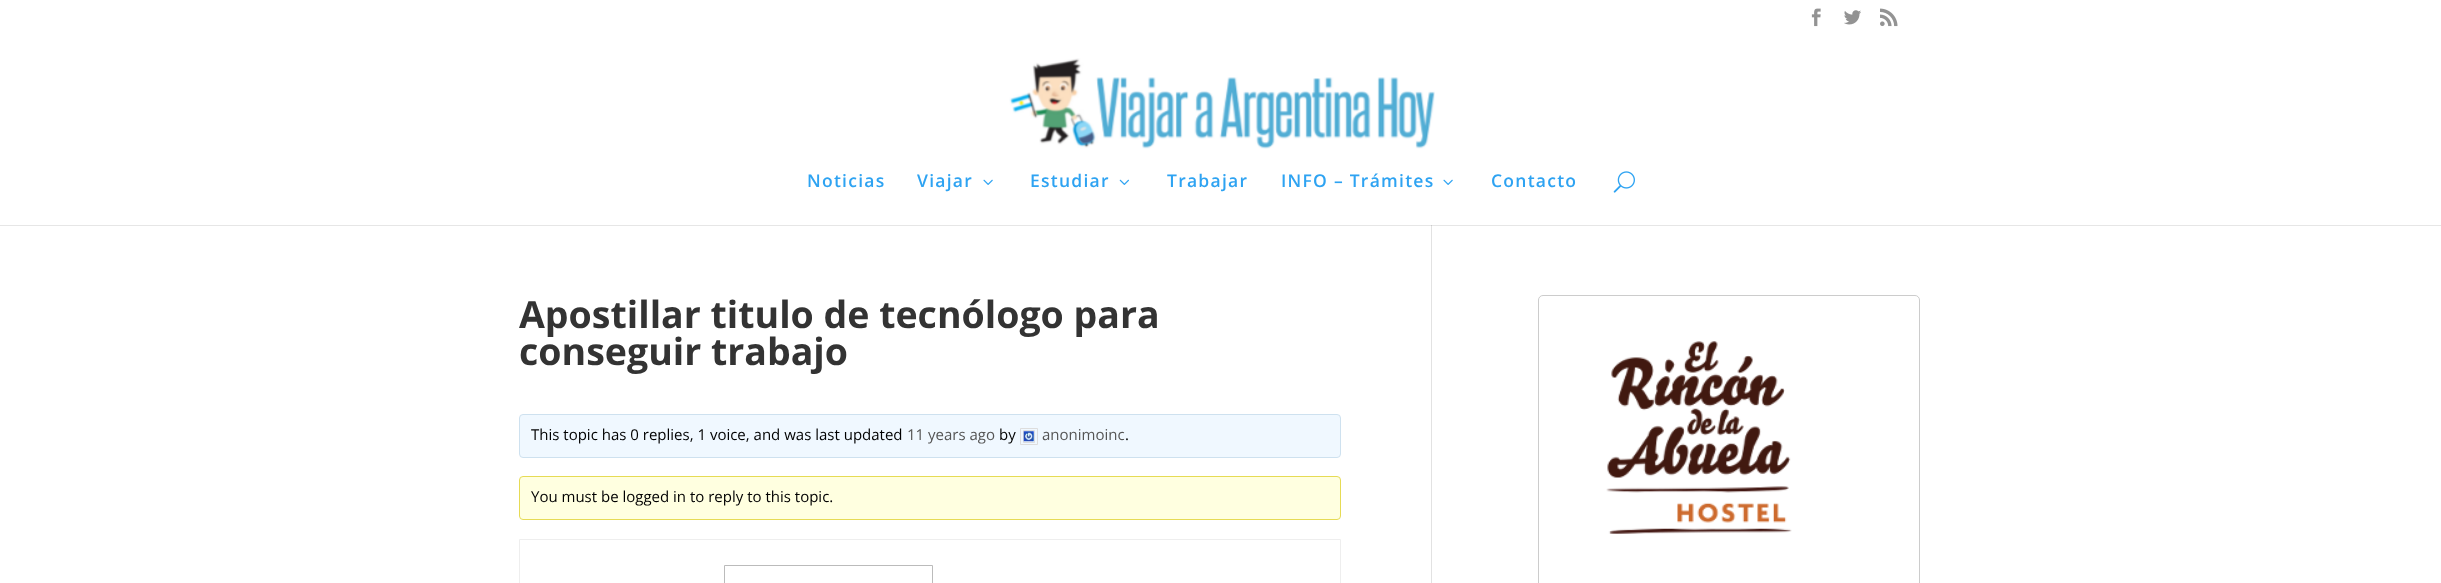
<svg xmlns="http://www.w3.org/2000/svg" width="2441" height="583">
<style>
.a{font:600 17.5px Open Sans;letter-spacing:1.25px;fill:#2ea3f2}
.b{font:bold 37.5px Open Sans;fill:#333}
.c{font:15px Open Sans;fill:#000}
.d{font:15px Open Sans;fill:#555}
</style>
<rect width="100%" height="100%" fill="#fff"/>
<path fill="#e6e6e6" d="M0 225h2441v1H0z"/>
<image href="1.png" x="1811" y="8" width="10" height="19"/>
<image href="2.png" x="1844" y="10" width="17" height="15"/>
<image href="3.png" x="1880" y="8" width="18" height="19"/>
<path fill="#e2e2e2" d="M1431 223h1v360H1431z"/>
<path fill="#fff" d="M1431 223h1v2H1431z"/>
<image href="4.png" x="1009" y="58" width="426" height="91"/>
<image href="5.png" x="983" y="179" width="10" height="6"/>
<image href="6.png" x="1119" y="179" width="10" height="6"/>
<image href="5.png" x="1443" y="179" width="10" height="6"/>
<image href="7.png" x="1613" y="171" width="22" height="22"/>
<rect fill="#f0f8ff" stroke="#cee1ef" x="519.5" y="414.5" width="821" height="43" rx="3.5"/>
<path fill="none" stroke="#ddd" d="M1020.5 428.5h17v16H1020.5z"/>
<path fill="none" stroke="#ddd" d="M1023.5 430.5h11v12H1023.5z"/>
<image href="8.png" x="1023" y="431" width="11" height="11"/>
<rect fill="#ffffe0" stroke="#e6db55" x="519.5" y="476.5" width="821" height="43" rx="3.5"/>
<path fill="none" stroke="#eee" d="M519.5 539.5h821v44H519.5z"/>
<path fill="none" stroke="#bbb" d="M724.5 565.5h208v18H724.5z"/>
<rect fill="none" stroke="#ccc" x="1538.5" y="295.5" width="381" height="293" rx="4.5"/>
<image href="9.png" x="1606" y="341" width="186" height="193"/>
<path fill="#cbcbcb" d="M1431 225h1v1H1431z"/>
<text class="a" x="807" y="187">Noticias</text>
<text class="a" x="917" y="187">Viajar</text>
<text class="a" x="1030" y="187">Estudiar</text>
<text class="a" x="1167" y="187">Trabajar</text>
<text class="a" x="1281" y="187">INFO – Trámites</text>
<text class="a" x="1491" y="187">Contacto</text>
<text class="b" x="519" y="328">Apostillar titulo de tecnólogo para</text>
<text class="b" x="519" y="365">conseguir trabajo</text>
<text class="c" x="531" y="440">This topic has 0 replies, 1 voice, and was last updated</text>
<text class="d" x="907" y="440">11 years ago</text>
<text class="c" x="999" y="440">by</text>
<text class="d" x="1042" y="440">anonimoinc</text>
<text class="c" x="1125" y="440">.</text>
<text class="c" x="531" y="502">You must be logged in to reply to this topic.</text>
</svg>
